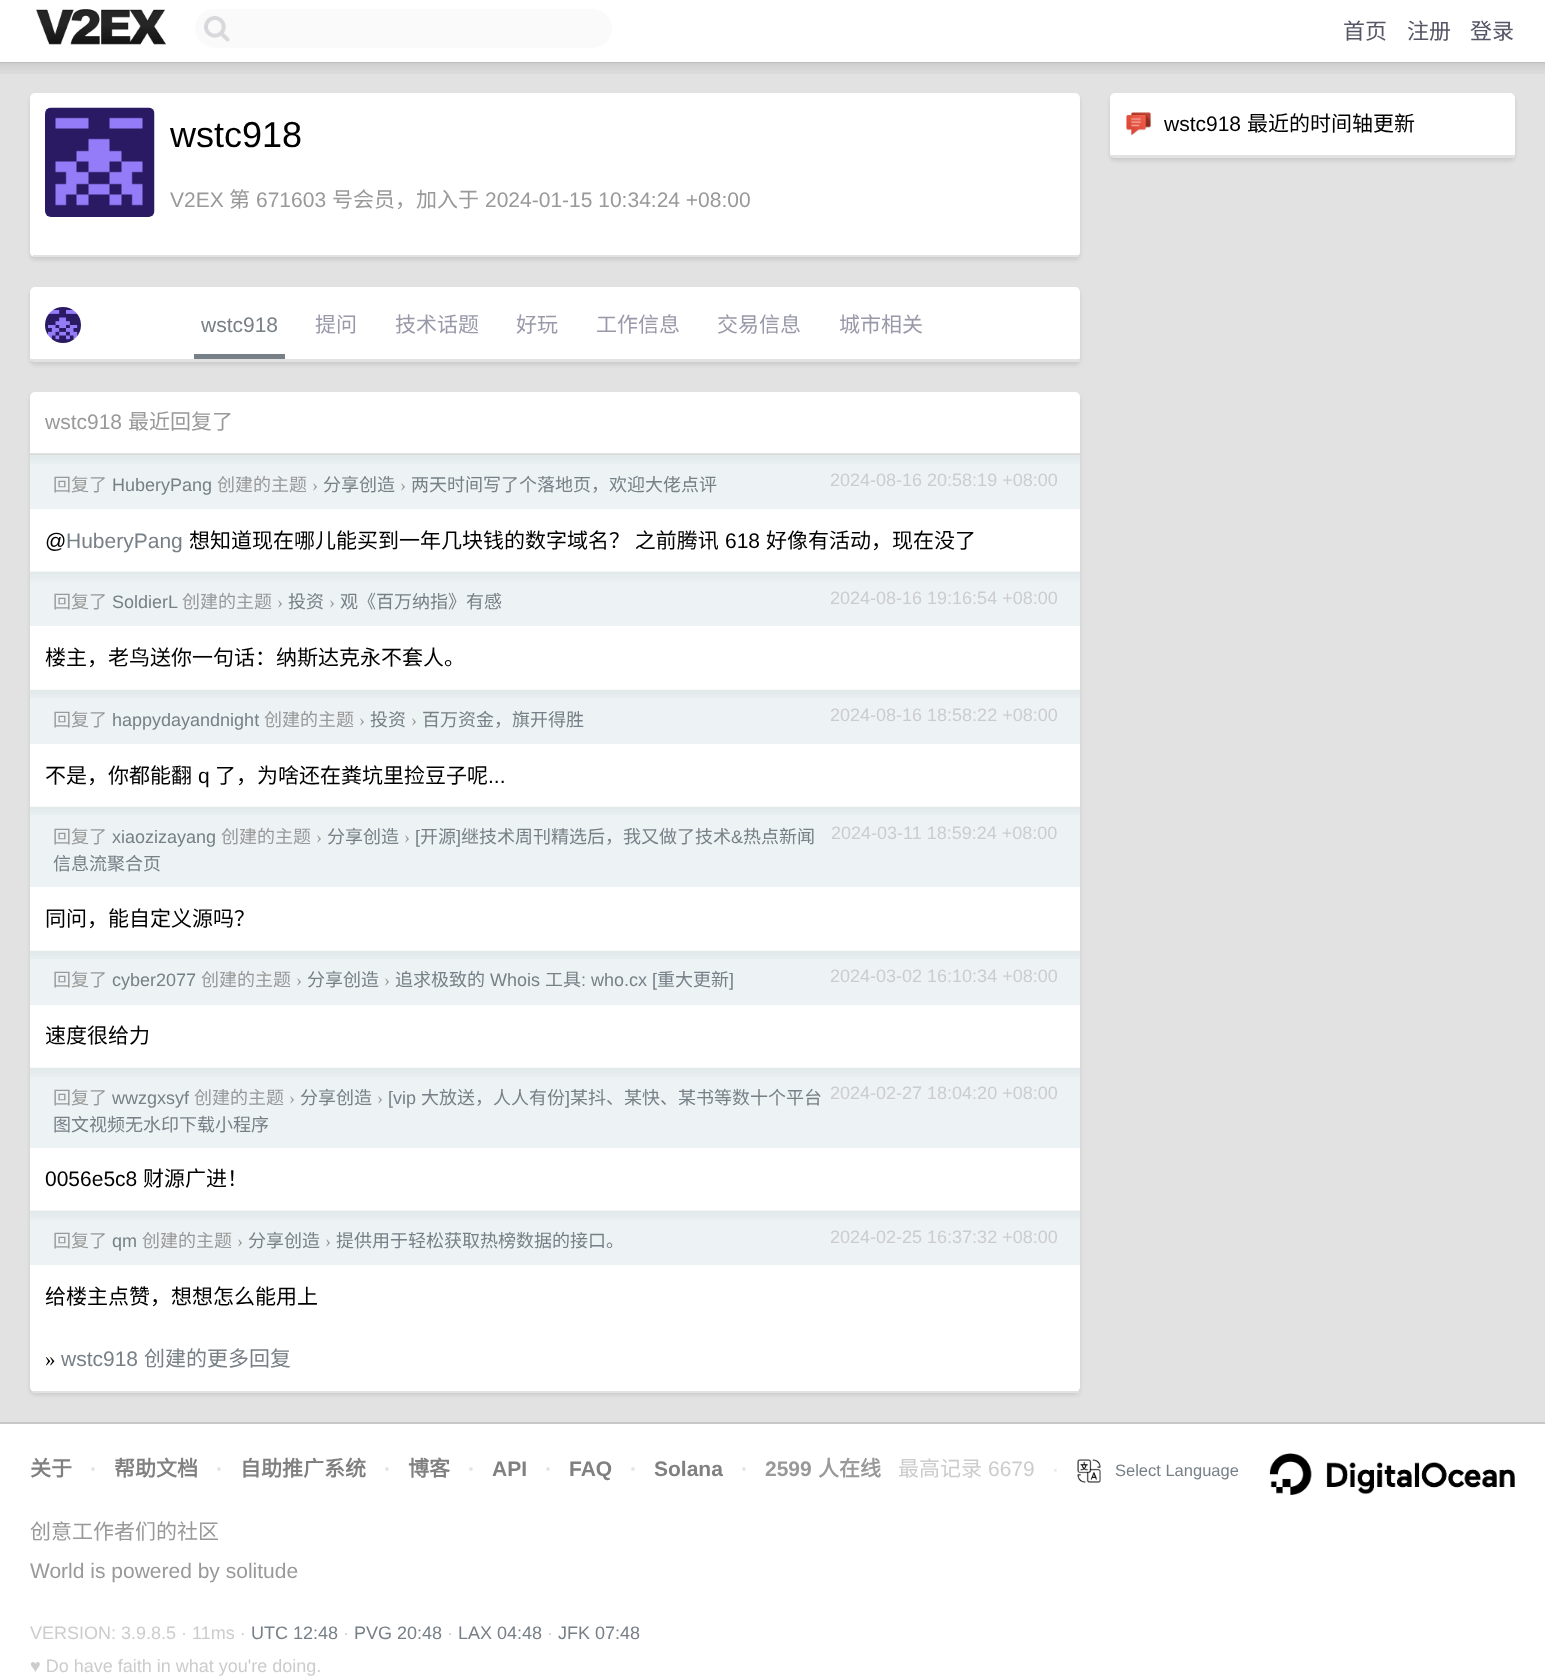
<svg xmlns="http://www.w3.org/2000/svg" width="1545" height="1680">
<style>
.a{font:22px Noto Sans CJK SC;fill:#556}
.b{font:36px Liberation Sans;fill:#000}
.c{font:21px Liberation Sans;fill:#999}
.d{font:21px Noto Sans CJK SC;fill:#999}
.e{font:21px Liberation Sans;fill:#778087}
.f{font:21px Noto Sans CJK SC;fill:#99a}
.g{font:18px Noto Sans CJK SC;fill:#999}
.h{font:18px Liberation Sans;fill:#778087}
.i{font:18px Liberation Serif;fill:#999}
.j{font:18px Noto Sans CJK SC;fill:#778087}
.k{font:18px Liberation Sans;fill:#ccc}
.l{font:21px Liberation Sans;fill:#000}
.m{font:21px Noto Sans CJK SC;fill:#000}
.n{font:21px Liberation Serif;fill:#000}
.o{font:21px Noto Sans CJK SC;fill:#778087}
.p{font:bold 21px Noto Sans CJK SC;fill:#808080}
.q{font:bold 21px Liberation Sans;fill:#e2e2e2}
.r{font:bold 21px Liberation Sans;fill:#808080}
.s{font:bold 21px Liberation Sans;fill:#999}
.t{font:bold 21px Noto Sans CJK SC;fill:#999}
.u{font:21px Noto Sans CJK SC;fill:#ccc}
.v{font:21px Liberation Sans;fill:#ccc}
.w{font:21px Liberation Sans;fill:#e2e2e2}
.x{font:16.5px Liberation Sans;fill:#778087}
</style>
<rect width="100%" height="100%" fill="#fff"/>
<path fill="#c7c7c7" d="M0 62h1545v1H0z"/>
<image href="1.png" x="36" y="9" width="130" height="36"/>
<rect fill="#fafafa" x="195" y="9" width="417" height="39" rx="19.5"/>
<image href="2.png" x="204" y="16" width="26" height="26"/>
<path fill="#e2e2e2" d="M0 63h1545v1359H0z"/>
<image href="3.png" x="0" y="62" width="1545" height="12"/>
<rect fill="#0000001a" filter="blur(2px)" x="30" y="96" width="1050" height="164" rx="5"/>
<rect fill="#fff" x="30" y="93" width="1050" height="164" rx="5"/>
<path fill="#e2e2e2" d="M33 255h1046v2H33z"/>
<image href="4.png" x="45" y="107" width="110" height="110"/>
<rect fill="#0000001a" filter="blur(2px)" x="30" y="290" width="1050" height="75" rx="5"/>
<rect fill="#fff" x="30" y="287" width="1050" height="75" rx="5"/>
<path fill="#e2e2e2" d="M33 361h1046v1H33z"/>
<path fill="#e2e2e2" d="M30 359h1050v2H30z"/>
<image href="5.png" x="45" y="307" width="36" height="36"/>
<path fill="#778087" d="M194 354h91v5H194z"/>
<rect fill="#0000001a" filter="blur(2px)" x="30" y="395" width="1050" height="1000" rx="5"/>
<rect fill="#fff" x="30" y="392" width="1050" height="1000" rx="5"/>
<path fill="#e2e2e2" d="M33 1391h1046v2H33z"/>
<path fill="#e2e2e2" d="M30 453h1050v2H30z"/>
<path fill="#edf3f5" d="M30 455h1050v54H30z"/>
<image href="6.png" x="30" y="454" width="1050" height="10"/>
<path fill="#edf3f5" d="M30 572h1050v54H30z"/>
<image href="7.png" x="30" y="571" width="1050" height="10"/>
<path fill="#edf3f5" d="M30 690h1050v54H30z"/>
<image href="8.png" x="30" y="689" width="1050" height="9"/>
<path fill="#edf3f5" d="M30 807h1050v80H30z"/>
<image href="9.png" x="30" y="806" width="1050" height="9"/>
<path fill="#edf3f5" d="M30 951h1050v54H30z"/>
<image href="10.png" x="30" y="950" width="1050" height="9"/>
<path fill="#edf3f5" d="M30 1068h1050v80H30z"/>
<image href="11.png" x="30" y="1067" width="1050" height="10"/>
<path fill="#edf3f5" d="M30 1211h1050v54H30z"/>
<image href="7.png" x="30" y="1210" width="1050" height="10"/>
<rect fill="#0000001a" filter="blur(2px)" x="1110" y="96" width="405" height="65" rx="5"/>
<rect fill="#fff" x="1110" y="93" width="405" height="65" rx="5"/>
<path fill="#e2e2e2" d="M1113 157h401v1H1113z"/>
<path fill="#e2e2e2" d="M1110 155h405v2H1110z"/>
<image href="12.png" x="1126" y="112" width="26" height="24"/>
<path fill="#c7c7c7" d="M0 1422h1545v2H0z"/>
<image href="13.png" x="1077" y="1459" width="24" height="24"/>
<image href="14.png" x="1269" y="1453" width="246" height="42"/>
<text class="a" x="1343" y="39">首页</text>
<text class="a" x="1407" y="39">注册</text>
<text class="a" x="1470" y="39">登录</text>
<text class="b" x="170" y="147">wstc918</text>
<text class="c" x="170" y="207">V2EX</text>
<text class="d" x="229" y="207">第</text>
<text class="c" x="256" y="207">671603</text>
<text class="d" x="332" y="207">号会员，加入于</text>
<text class="c" x="485" y="207">2024-01-15 10:34:24 +08:00</text>
<text class="e" x="201" y="332">wstc918</text>
<text class="f" x="315" y="332">提问</text>
<text class="f" x="395" y="332">技术话题</text>
<text class="f" x="516" y="332">好玩</text>
<text class="f" x="596" y="332">工作信息</text>
<text class="f" x="717" y="332">交易信息</text>
<text class="f" x="839" y="332">城市相关</text>
<text class="c" x="45" y="429">wstc918</text>
<text class="d" x="128" y="429">最近回复了</text>
<text class="g" x="53" y="491">回复了</text>
<text class="h" x="112" y="491">HuberyPang</text>
<text class="g" x="217" y="491">创建的主题</text>
<text class="i" x="312" y="491">›</text>
<text class="j" x="323" y="491">分享创造</text>
<text class="i" x="400" y="491">›</text>
<text class="j" x="411" y="491">两天时间写了个落地页，欢迎大佬点评</text>
<text class="k" x="830" y="486">2024-08-16 20:58:19 +08:00</text>
<text class="l" x="45" y="548">@</text>
<text class="e" x="66" y="548">HuberyPang</text>
<text class="m" x="189" y="548">想知道现在哪儿能买到一年几块钱的数字域名？ 之前腾讯</text>
<text class="l" x="725" y="548">618</text>
<text class="m" x="766" y="548">好像有活动，现在没了</text>
<text class="g" x="53" y="608">回复了</text>
<text class="h" x="112" y="608">SoldierL</text>
<text class="g" x="182" y="608">创建的主题</text>
<text class="i" x="277" y="608">›</text>
<text class="j" x="288" y="608">投资</text>
<text class="i" x="329" y="608">›</text>
<text class="j" x="340" y="608">观《百万纳指》有感</text>
<text class="k" x="830" y="604">2024-08-16 19:16:54 +08:00</text>
<text class="m" x="45" y="665">楼主，老鸟送你一句话：纳斯达克永不套人。</text>
<text class="g" x="53" y="726">回复了</text>
<text class="h" x="112" y="726">happydayandnight</text>
<text class="g" x="264" y="726">创建的主题</text>
<text class="i" x="359" y="726">›</text>
<text class="j" x="370" y="726">投资</text>
<text class="i" x="411" y="726">›</text>
<text class="j" x="422" y="726">百万资金，旗开得胜</text>
<text class="k" x="830" y="721">2024-08-16 18:58:22 +08:00</text>
<text class="m" x="45" y="783">不是，你都能翻</text>
<text class="l" x="198" y="783">q</text>
<text class="m" x="215" y="783">了，为啥还在粪坑里捡豆子呢</text>
<text class="l" x="488" y="783">...</text>
<text class="g" x="53" y="843">回复了</text>
<text class="h" x="112" y="843">xiaozizayang</text>
<text class="g" x="221" y="843">创建的主题</text>
<text class="i" x="316" y="843">›</text>
<text class="j" x="327" y="843">分享创造</text>
<text class="i" x="404" y="843">›</text>
<text class="h" x="415" y="843">[</text>
<text class="j" x="420" y="843">开源</text>
<text class="h" x="456" y="843">]</text>
<text class="j" x="461" y="843">继技术周刊精选后，我又做了技术</text>
<text class="h" x="731" y="843">&amp;</text>
<text class="j" x="743" y="843">热点新闻</text>
<text class="k" x="831" y="839">2024-03-11 18:59:24 +08:00</text>
<text class="j" x="53" y="870">信息流聚合页</text>
<text class="m" x="45" y="926">同问，能自定义源吗？</text>
<text class="g" x="53" y="986">回复了</text>
<text class="h" x="112" y="986">cyber2077</text>
<text class="g" x="201" y="986">创建的主题</text>
<text class="i" x="296" y="986">›</text>
<text class="j" x="307" y="986">分享创造</text>
<text class="i" x="384" y="986">›</text>
<text class="j" x="395" y="986">追求极致的</text>
<text class="h" x="490" y="986">Whois</text>
<text class="j" x="545" y="986">工具</text>
<text class="h" x="581" y="986">: who.cx [</text>
<text class="j" x="657" y="986">重大更新</text>
<text class="h" x="729" y="986">]</text>
<text class="k" x="830" y="982">2024-03-02 16:10:34 +08:00</text>
<text class="m" x="45" y="1043">速度很给力</text>
<text class="g" x="53" y="1104">回复了</text>
<text class="h" x="112" y="1104">wwzgxsyf</text>
<text class="g" x="194" y="1104">创建的主题</text>
<text class="i" x="289" y="1104">›</text>
<text class="j" x="300" y="1104">分享创造</text>
<text class="i" x="377" y="1104">›</text>
<text class="h" x="388" y="1104">[vip</text>
<text class="j" x="421" y="1104">大放送，人人有份</text>
<text class="h" x="565" y="1104">]</text>
<text class="j" x="570" y="1104">某抖、某快、某书等数十个平台</text>
<text class="k" x="830" y="1099">2024-02-27 18:04:20 +08:00</text>
<text class="j" x="53" y="1131">图文视频无水印下载小程序</text>
<text class="l" x="45" y="1186">0056e5c8</text>
<text class="m" x="143" y="1186">财源广进！</text>
<text class="g" x="53" y="1247">回复了</text>
<text class="h" x="112" y="1247">qm</text>
<text class="g" x="142" y="1247">创建的主题</text>
<text class="i" x="237" y="1247">›</text>
<text class="j" x="248" y="1247">分享创造</text>
<text class="i" x="325" y="1247">›</text>
<text class="j" x="336" y="1247">提供用于轻松获取热榜数据的接口。</text>
<text class="k" x="830" y="1243">2024-02-25 16:37:32 +08:00</text>
<text class="m" x="45" y="1304">给楼主点赞，想想怎么能用上</text>
<text class="n" x="45" y="1366">»</text>
<text class="e" x="61" y="1366">wstc918</text>
<text class="o" x="144" y="1366">创建的更多回复</text>
<text class="l" x="1164" y="131">wstc918</text>
<text class="m" x="1247" y="131">最近的时间轴更新</text>
<text class="p" x="30" y="1476">关于</text>
<text class="q" x="90" y="1476">·</text>
<text class="p" x="114" y="1476">帮助文档</text>
<text class="q" x="216" y="1476">·</text>
<text class="p" x="240" y="1476">自助推广系统</text>
<text class="q" x="384" y="1476">·</text>
<text class="p" x="408" y="1476">博客</text>
<text class="q" x="468" y="1476">·</text>
<text class="r" x="492" y="1476">API</text>
<text class="q" x="545" y="1476">·</text>
<text class="r" x="569" y="1476">FAQ</text>
<text class="q" x="630" y="1476">·</text>
<text class="r" x="654" y="1476">Solana</text>
<text class="q" x="741" y="1476">·</text>
<text class="s" x="765" y="1476">2599</text>
<text class="t" x="818" y="1476">人在线</text>
<text class="u" x="898" y="1476">最高记录</text>
<text class="v" x="988" y="1476">6679</text>
<text class="w" x="1052" y="1476">·</text>
<text class="x" x="1115" y="1476">Select Language</text>
<text class="d" x="30" y="1539">创意工作者们的社区</text>
<text class="c" x="30" y="1578">World is powered by solitude</text>
<text class="k" x="30" y="1639">VERSION: 3.9.8.5 · 11ms ·</text>
<text class="h" x="251" y="1639">UTC 12:48</text>
<text class="k" x="343" y="1639">·</text>
<text class="h" x="354" y="1639">PVG 20:48</text>
<text class="k" x="447" y="1639">·</text>
<text class="h" x="458" y="1639">LAX 04:48</text>
<text class="k" x="547" y="1639">·</text>
<text class="h" x="558" y="1639">JFK 07:48</text>
<text class="k" x="30" y="1672">♥ Do have faith in what you're doing.</text>
</svg>
